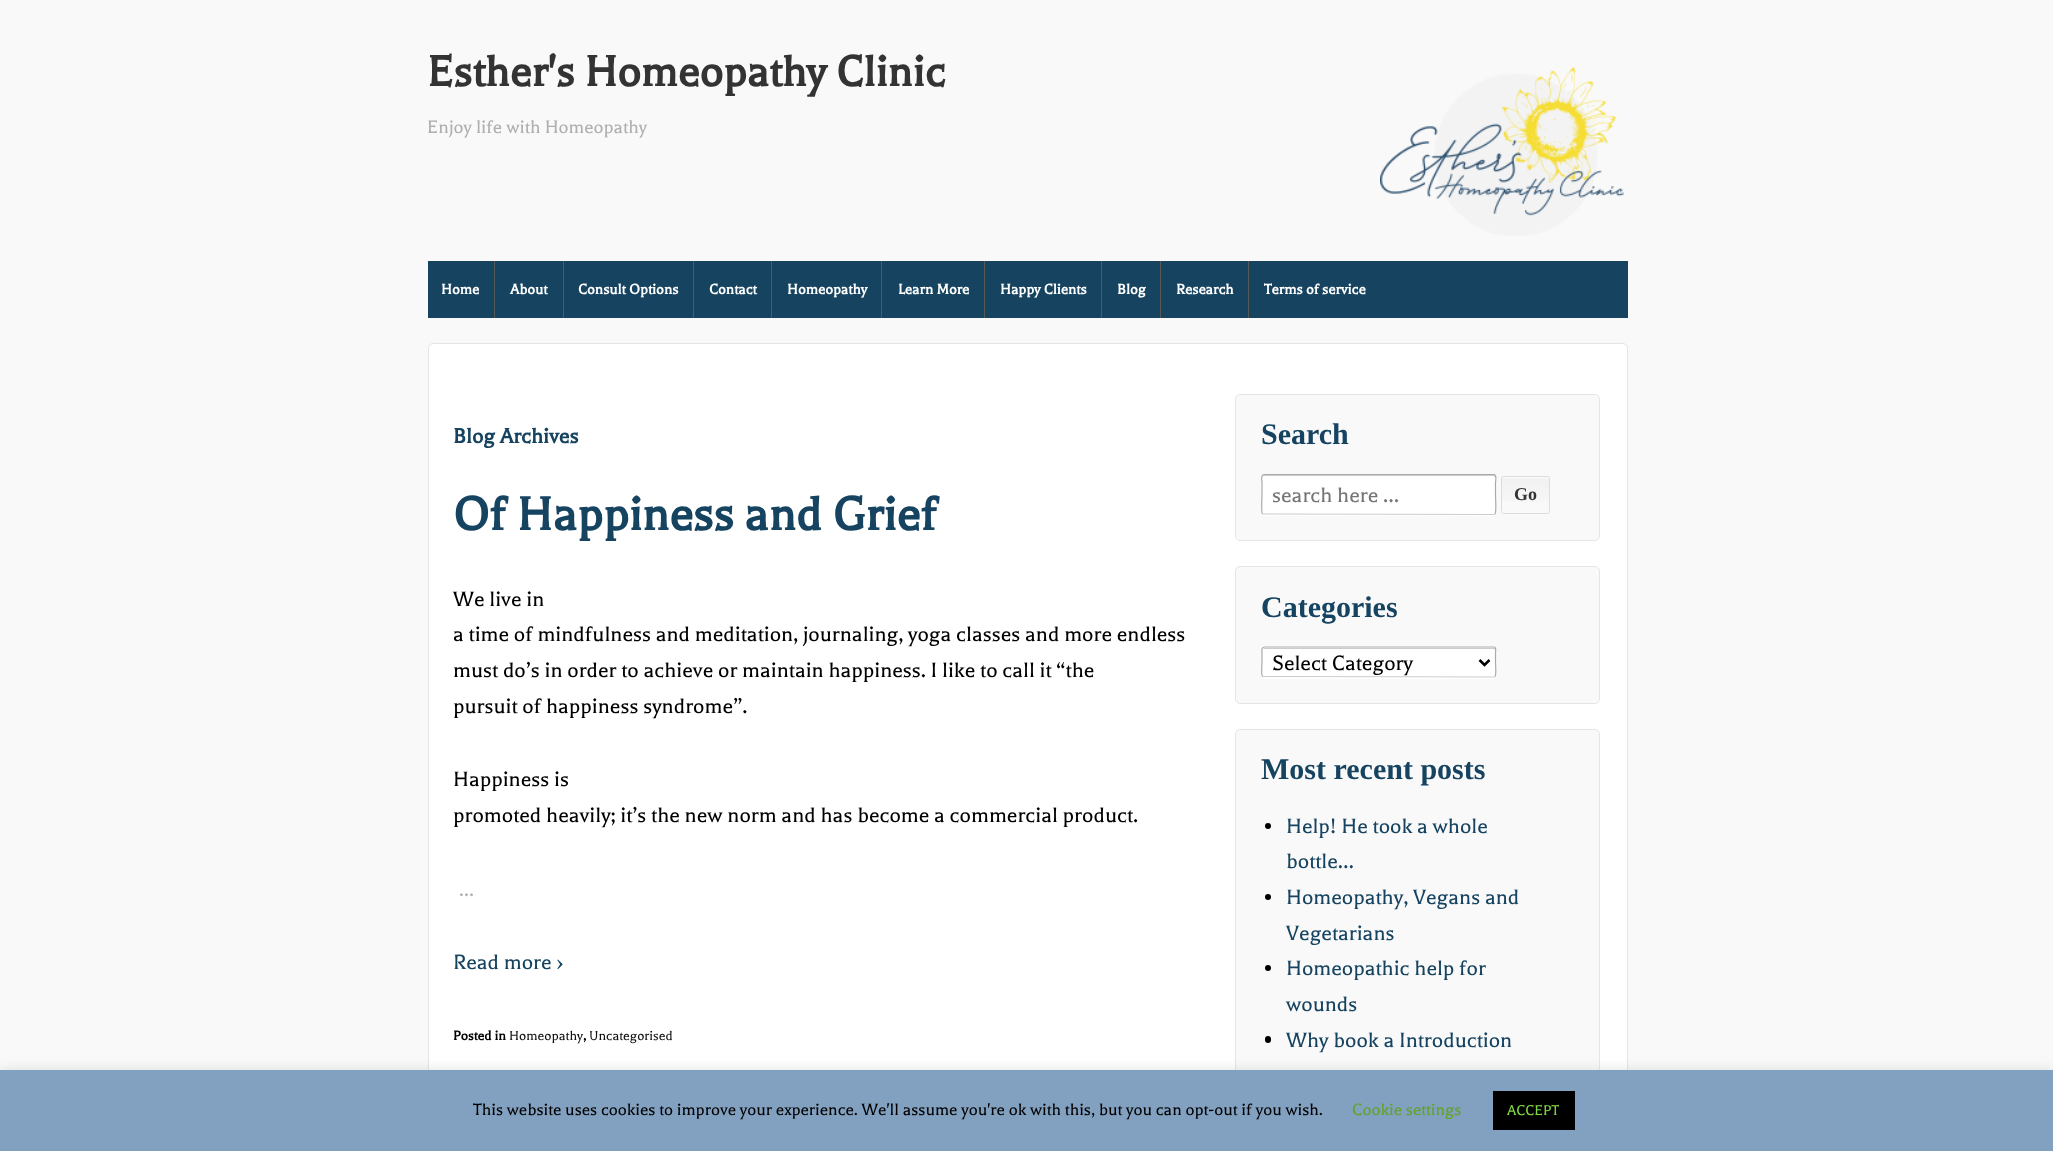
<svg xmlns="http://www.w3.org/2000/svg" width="2053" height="1151">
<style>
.a{font:bold 49px Balthazar;fill:#333}
.b{font:20.75px Balthazar;fill:#afafaf}
.c{font:bold 16.25px Balthazar;fill:#fff}
.d{font:bold 23.75px Balthazar;fill:#154360}
.e{font:bold 53.5px Balthazar;fill:#154360}
.f{font:23.75px Balthazar;fill:#000}
.g{font:22px Balthazar;fill:#afafaf}
.h{font:23.75px Balthazar;fill:#154360}
.i{font:bold 15px Balthazar;fill:#000}
.j{font:15px Balthazar;fill:#111}
.k{font:bold 30px Liberation Serif;fill:#154360}
.l{font:23.75px Balthazar;fill:#757575}
.m{font:bold 18px Liberation Serif;fill:#333}
.n{font:18.75px Balthazar;fill:#000}
.o{font:18.75px Balthazar;fill:#62a329}
.p{font:16.25px Balthazar;fill:#81d742}
</style>
<defs>
<linearGradient id="g1" gradientUnits="userSpaceOnUse" x1="1526" y1="513" x2="1526" y2="478"><stop offset="0" stop-color="#f9f9f9"/><stop offset="1" stop-color="#f1f1f1"/></linearGradient>
<clipPath id="clip1"><path d="M1273 483h212v23H1273z"/></clipPath>
</defs>
<rect width="100%" height="100%" fill="#f9f9f9"/>
<image href="1.png" x="1380" y="67" width="244" height="169"/>
<path fill="#154360" d="M428 261h1200v57H428z"/>
<path fill="#585858" d="M494 261h1v57H494z"/>
<path fill="#585858" d="M563 261h1v57H563z"/>
<path fill="#585858" d="M693 261h1v57H693z"/>
<path fill="#585858" d="M771 261h1v57H771z"/>
<path fill="#585858" d="M881 261h1v57H881z"/>
<path fill="#585858" d="M984 261h1v57H984z"/>
<path fill="#585858" d="M1101 261h1v57H1101z"/>
<path fill="#585858" d="M1160 261h1v57H1160z"/>
<path fill="#585858" d="M1248 261h1v57H1248z"/>
<rect fill="#fff" stroke="#e5e5e5" x="428.5" y="343.5" width="1199" height="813" rx="4.5"/>
<rect fill="#f9f9f9" stroke="#e5e5e5" x="1235.5" y="394.5" width="364" height="146" rx="4.5"/>
<path fill="#fff" d="M1261 476v38c0 1 1 2 3 2h230c1 0 2-1 2-2c0 0-1 1-2 1h-230c-2 0-3-1-3-3z"/>
<rect fill="#fff" x="1261" y="474" width="235" height="41" rx="2.5"/>
<path fill="#ccc" d="M1264 476h230l1 2v-2c0-1 0-1-1-1h-230c-1 0-1 0-1 1z"/>
<path fill="none" stroke="#ccc" stroke-width="1.2" d="M1495 514l-1 .5l-231.5-.5"/>
<path fill="none" stroke="#aaa" stroke-width="1.2" d="M1262.5 514c-1.5-1.5-.5-17-.5-19.5v-12c0-.5-1.5-8 2-8h230c3 0 1.5 7.5 1.5 8v12c0 2.5 1 18-.5 19.5"/>
<path fill="url(#g1)" d="M1501 478h49v24H1501z"/>
<path fill="#f5f5f5" d="M1504 479h44l1 1c0-4-4-2-8-2h-30c-1 0-8-1-8 1z"/>
<rect fill="none" stroke="#ddd" x="1501.5" y="476.5" width="48" height="37" rx="2"/>
<rect fill="#f9f9f9" stroke="#e5e5e5" x="1235.5" y="566.5" width="364" height="137" rx="4.5"/>
<path fill="#fff" d="M1261 649v19c0 2-2 11 3 11h230c1 0 2-1 2-3c0 1-1 2-2 2h-230c-2 0-3-2-3-3z"/>
<rect fill="#fff" x="1261" y="646" width="235" height="32" rx="2.5"/>
<path fill="#ccc" d="M1264 649h230l1 1v-2h-231l-1 1z"/>
<path fill="none" stroke="#ccc" stroke-width="1.2" d="M1495 676.5l-1 .5l-231.5-.5"/>
<path fill="none" stroke="#aaa" stroke-width="1.2" d="M1262.5 676.5c-1.5-1.5-.5-12.5-.5-14.5v-9c0-1-1-6 2-6h230c2.5 0 1.5 5 1.5 6v9c0 2 1 13-.5 14.5"/>
<path fill="none" stroke="#000" stroke-width="2.5" d="M1479.5 660l5 5l5-5"/>
<rect fill="#f9f9f9" stroke="#e5e5e5" x="1235.5" y="729.5" width="364" height="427" rx="4.5"/>
<circle fill="#000" cx="1268" cy="826" r="3"/>
<circle fill="#000" cx="1268" cy="897" r="3"/>
<circle fill="#000" cx="1268" cy="968" r="3"/>
<rect fill="#000" x="1265" y="1036" width="6" height="7" rx="3"/>
<path fill="#acabab4d" filter="blur(6px)" d="M0 1069h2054v81H0z"/>
<path fill="#82a0bf" d="M0 1070h2053v81H0z"/>
<path fill="#000" d="M1493 1091h82v39H1493z"/>
<text class="a" x="427" y="86">Esther's Homeopathy Clinic</text>
<text class="b" x="427" y="133">Enjoy life with Homeopathy</text>
<text class="c" x="441" y="294">Home</text>
<text class="c" x="510" y="294">About</text>
<text class="c" x="578" y="294">Consult Options</text>
<text class="c" x="709" y="294">Contact</text>
<text class="c" x="787" y="294">Homeopathy</text>
<text class="c" x="898" y="294">Learn More</text>
<text class="c" x="1000" y="294">Happy Clients</text>
<text class="c" x="1117" y="294">Blog</text>
<text class="c" x="1176" y="294">Research</text>
<text class="c" x="1264" y="294">Terms of service</text>
<text class="d" x="453" y="443">Blog Archives</text>
<text class="e" x="453" y="530">Of Happiness and Grief</text>
<text class="f" x="453" y="606">We live in</text>
<text class="f" x="453" y="641">a time of mindfulness and meditation, journaling, yoga classes and more endless</text>
<text class="f" x="453" y="677">must do’s in order to achieve or maintain happiness. I like to call it “the</text>
<text class="f" x="453" y="713">pursuit of happiness syndrome”.</text>
<text class="f" x="453" y="786">Happiness is</text>
<text class="f" x="453" y="822">promoted heavily; it’s the new norm and has become a commercial product.</text>
<text class="g" x="459" y="896">…</text>
<text class="h" x="453" y="969">Read more ›</text>
<text class="i" x="453" y="1040">Posted in</text>
<text class="j" x="509" y="1040">Homeopathy</text>
<text class="i" x="583" y="1040">,</text>
<text class="j" x="589" y="1040">Uncategorised</text>
<text class="k" x="1261" y="444">Search</text>
<g clip-path="url(#clip1)">
<text class="l" x="1272" y="502">search here …</text>
</g>
<text class="m" x="1514" y="500">Go</text>
<text class="k" x="1261" y="617">Categories</text>
<text class="f" x="1272" y="670">Select Category</text>
<text class="k" x="1261" y="779">Most recent posts</text>
<text class="h" x="1286" y="833">Help! He took a whole</text>
<text class="h" x="1286" y="868">bottle…</text>
<text class="h" x="1286" y="904">Homeopathy, Vegans and</text>
<text class="h" x="1286" y="940">Vegetarians</text>
<text class="h" x="1286" y="975">Homeopathic help for</text>
<text class="h" x="1286" y="1011">wounds</text>
<text class="h" x="1286" y="1047">Why book a Introduction</text>
<text class="n" x="473" y="1115">This website uses cookies to improve your experience. We'll assume you're ok with this, but you can opt-out if you wish.</text>
<text class="o" x="1352" y="1115">Cookie settings</text>
<text class="p" x="1507" y="1115">ACCEPT</text>
</svg>
